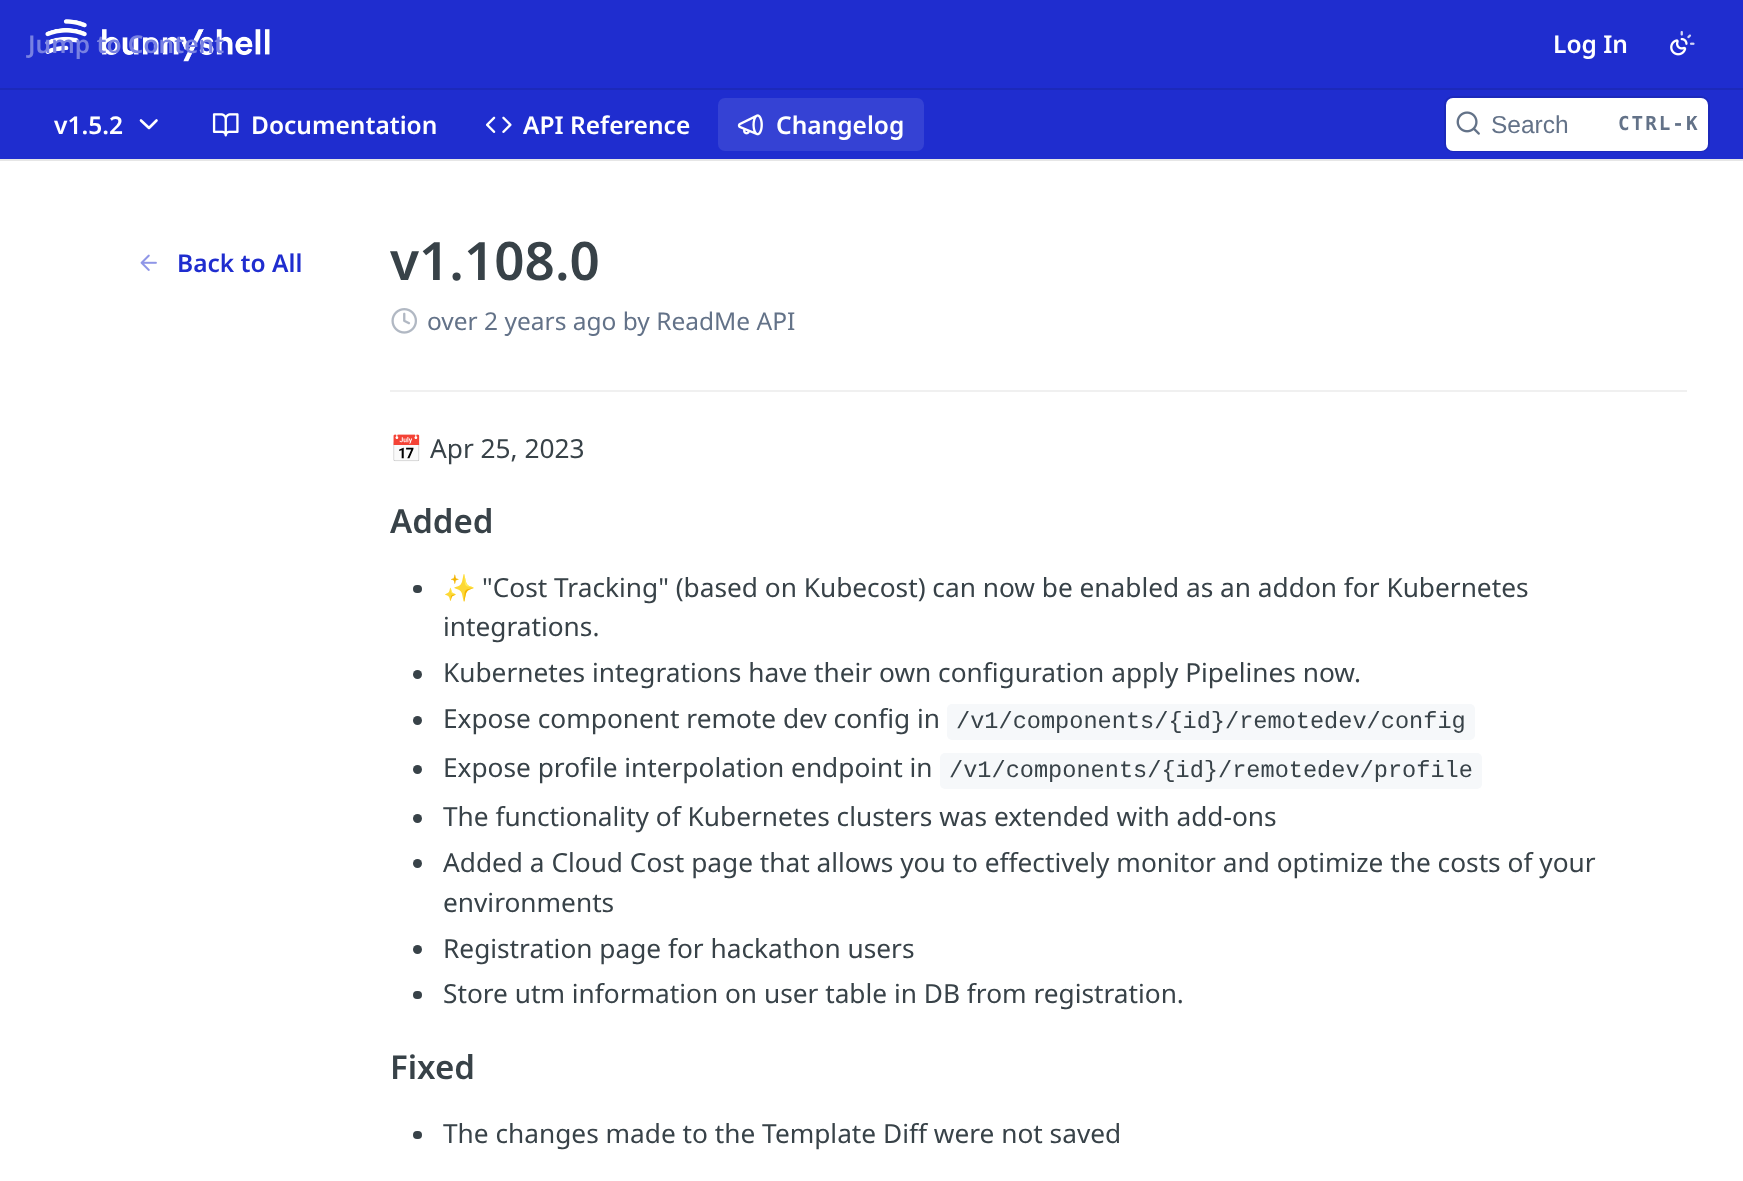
<svg xmlns="http://www.w3.org/2000/svg" width="1743" height="1181">
<style>
.a{font:600 24.5px Noto Sans;fill:#7881e2}
.b{font:600 24.5px Noto Sans;fill:#fff}
.c{font:24.5px Liberation Sans;fill:#637288}
.d{font:bold 19.25px DejaVu Sans Mono;letter-spacing:2px;fill:#637288}
.e{font:600 24.5px Noto Sans;fill:#1f2dcf}
.f{font:600 53px Noto Sans;fill:#384248}
.g{font:24.5px Noto Sans;fill:#637288}
.h{font:26.25px Noto Color Emoji;fill:#384248}
.i{font:26.25px Noto Sans;fill:#384248}
.j{font:600 33px Noto Sans;fill:#384248}
.k{font:23.6px Liberation Mono;fill:#384248}
</style>
<rect width="100%" height="100%" fill="#fff"/>
<path fill="#e6e6e6" d="M0 159h1743v2H0z"/>
<path fill="#1f2dcf" d="M0 0h1743v159H0z"/>
<path fill="#1c29ba" d="M0 88h1743v2H0z"/>
<image href="1.png" x="45" y="19" width="225" height="43"/>
<image href="2.png" x="1670" y="31" width="25" height="25"/>
<path fill="none" stroke="#fff" stroke-width="2.6" stroke-linecap="round" stroke-linejoin="round" d="M141 120.5l8 7.5l7.5-7.5"/>
<image href="3.png" x="212" y="113" width="27" height="24"/>
<image href="4.png" x="485" y="116" width="27" height="17"/>
<rect fill="#3542d4" x="718" y="98" width="206" height="53" rx="7"/>
<image href="5.png" x="737" y="114" width="26" height="22"/>
<rect fill="none" stroke="#1c29ba" stroke-width="2" x="1445" y="97" width="264" height="54" rx="8"/>
<rect fill="#fff" x="1446" y="98" width="262" height="53" rx="7"/>
<image href="6.png" x="1456" y="111" width="24" height="24"/>
<image href="7.png" x="140" y="254" width="17" height="17"/>
<path fill="#f0f0f0" d="M390 390h1297v2H390z"/>
<image href="8.png" x="391" y="308" width="26" height="26"/>
<rect fill="#384248" x="413" y="585" width="9" height="8" rx="4"/>
<circle fill="#384248" cx="417.5" cy="674.5" r="4.5"/>
<circle fill="#384248" cx="417.5" cy="720.5" r="4.5"/>
<rect fill="#f6f8fa" x="947" y="704" width="528" height="36" rx="5"/>
<circle fill="#384248" cx="417.5" cy="769.5" r="4.5"/>
<rect fill="#f6f8fa" x="940" y="753" width="542" height="36" rx="5"/>
<circle fill="#384248" cx="417.5" cy="818.5" r="4.5"/>
<circle fill="#384248" cx="417.5" cy="863.5" r="4.5"/>
<circle fill="#384248" cx="417.5" cy="949.5" r="4.5"/>
<rect fill="#384248" x="413" y="991" width="9" height="8" rx="4"/>
<rect fill="#384248" x="413" y="1131" width="9" height="8" rx="4"/>
<text class="a" x="28" y="53">Jump to Content</text>
<text class="b" x="1553" y="53">Log In</text>
<text class="b" x="54" y="134">v1.5.2</text>
<text class="b" x="251" y="134">Documentation</text>
<text class="b" x="523" y="134">API Reference</text>
<text class="b" x="776" y="134">Changelog</text>
<text class="c" x="1491" y="133">Search</text>
<text class="d" x="1618" y="130">CTRL-K</text>
<text class="e" x="177" y="272">Back to All</text>
<text class="f" x="390" y="280">v1.108.0</text>
<text class="g" x="427" y="330">over 2 years ago by ReadMe API</text>
<text class="h" x="390" y="458">📅</text>
<text class="i" x="430" y="458">Apr 25, 2023</text>
<text class="j" x="390" y="533">Added</text>
<text class="h" x="443" y="597">✨</text>
<text class="i" x="482" y="597">"Cost Tracking" (based on Kubecost) can now be enabled as an addon for Kubernetes</text>
<text class="i" x="443" y="636">integrations.</text>
<text class="i" x="443" y="682">Kubernetes integrations have their own configuration apply Pipelines now.</text>
<text class="i" x="443" y="728">Expose component remote dev config in</text>
<text class="k" x="956" y="728">/v1/components/{id}/remotedev/config</text>
<text class="i" x="443" y="777">Expose profile interpolation endpoint in</text>
<text class="k" x="949" y="777">/v1/components/{id}/remotedev/profile</text>
<text class="i" x="443" y="826">The functionality of Kubernetes clusters was extended with add-ons</text>
<text class="i" x="443" y="872">Added a Cloud Cost page that allows you to effectively monitor and optimize the costs of your</text>
<text class="i" x="443" y="912">environments</text>
<text class="i" x="443" y="958">Registration page for hackathon users</text>
<text class="i" x="443" y="1003">Store utm information on user table in DB from registration.</text>
<text class="j" x="390" y="1079">Fixed</text>
<text class="i" x="443" y="1143">The changes made to the Template Diff were not saved</text>
</svg>
